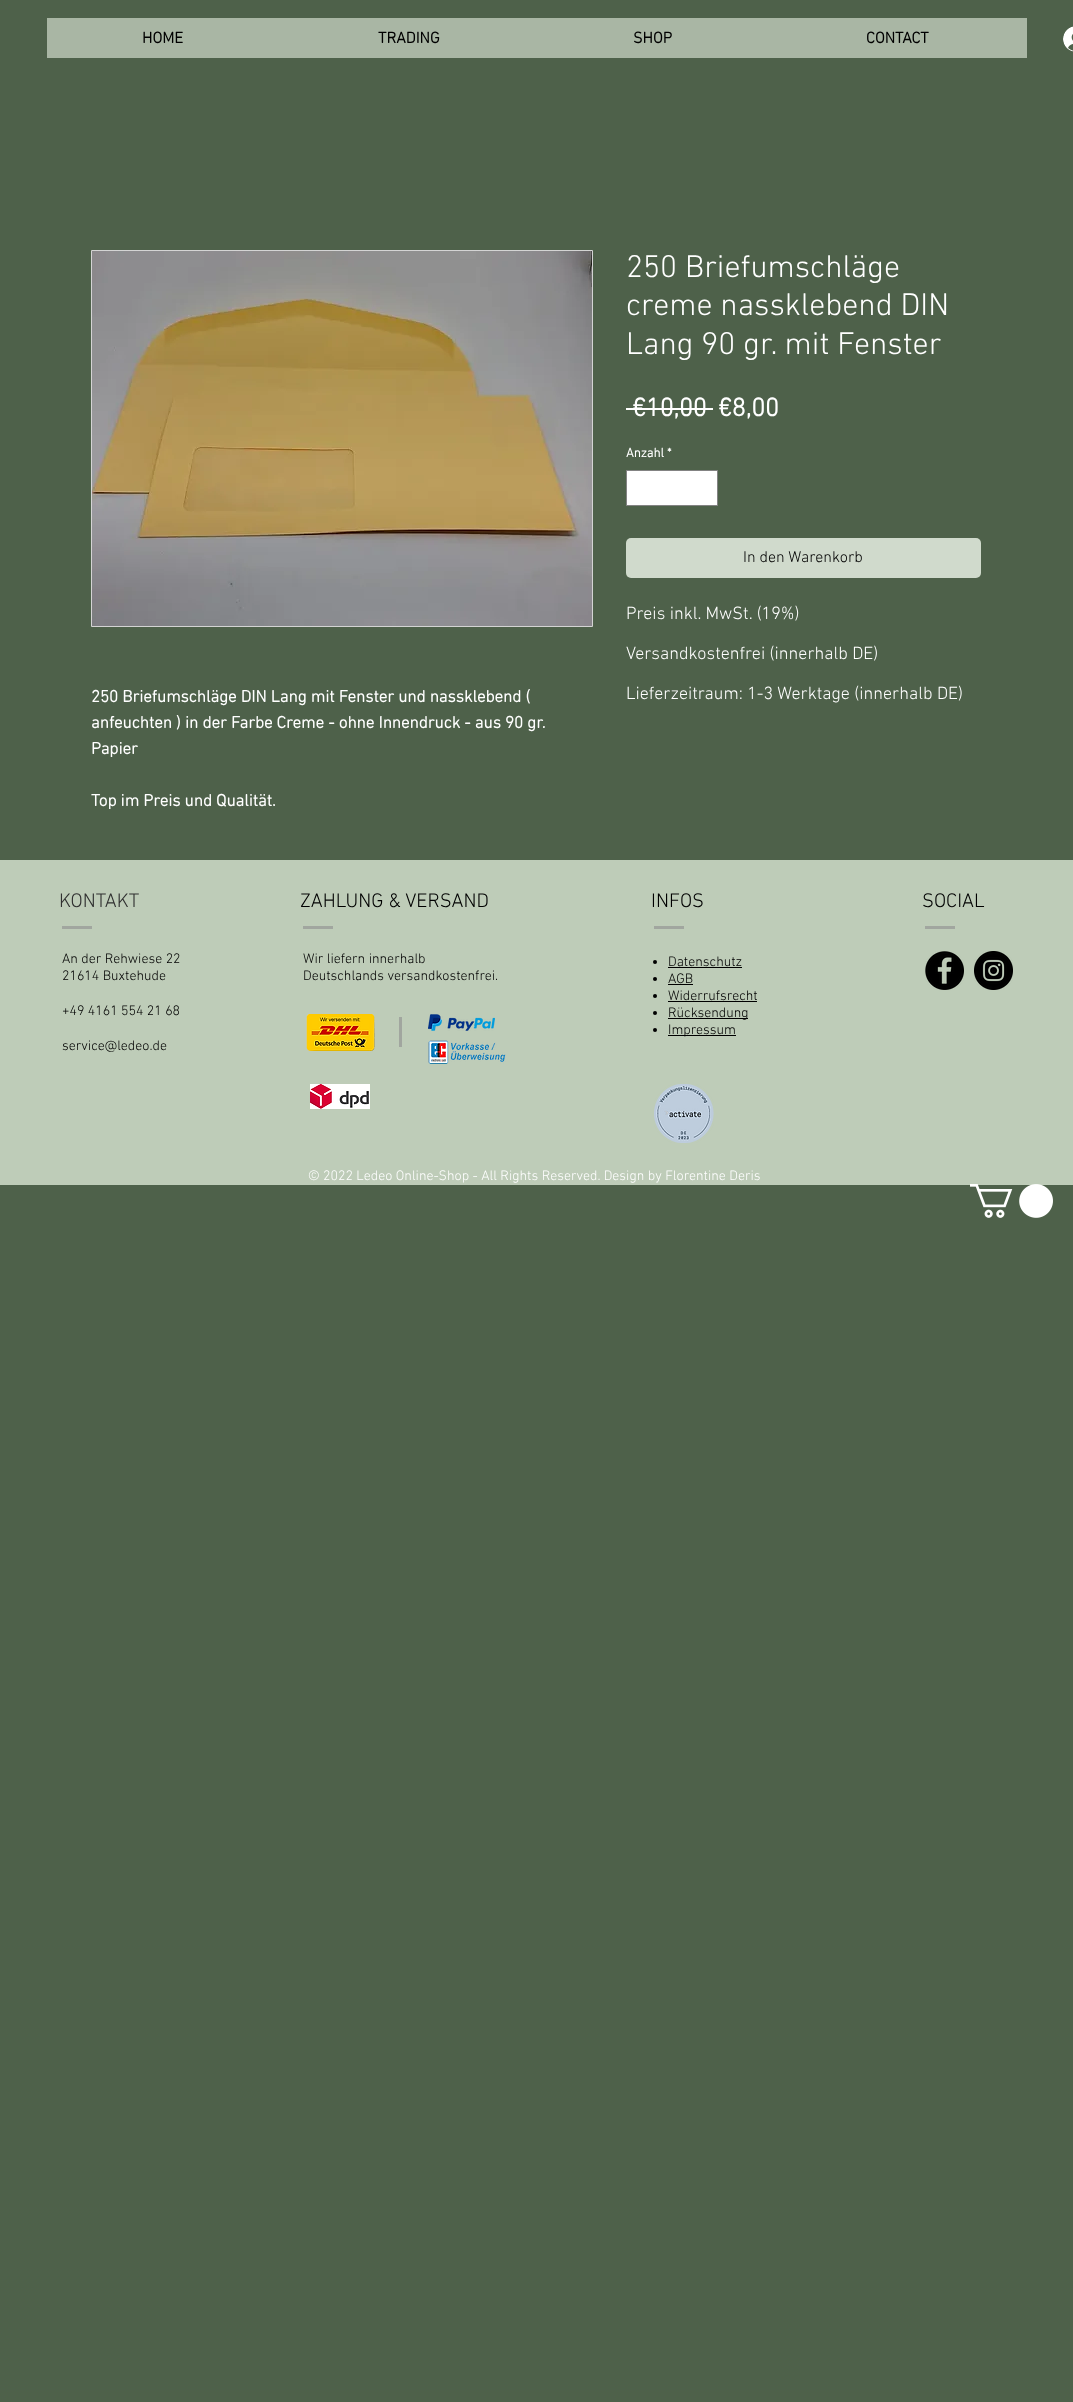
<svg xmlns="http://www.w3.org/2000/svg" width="1073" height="2402">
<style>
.a{font:bold 16px 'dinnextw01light';fill:#000}
.b{font:300 32px 'dinnextw01light';fill:#fff}
.c{font:bold 26px 'dinnextw01light';fill:#fff}
.d{font:bold 13px 'dinnextw01light';fill:#fff}
.e{font:300 16px 'dinnextw01light';fill:#000}
.f{font:300 18px 'dinnextw01light';fill:#fff}
.g{font:bold 17px 'dinnextw01light';fill:#fff}
.h{font:300 20px 'dinnextw01light';fill:#303030}
.i{font:300 20px 'dinnextw01light';fill:#000}
.j{font:300 14px 'dinnextw01light';fill:#000}
.k{font:300 14px 'dinnextw01light';fill:#fff}
</style>
<rect width="100%" height="100%" fill="#4e614a"/>
<path fill="#a9b6a4" d="M47 18h980v40H47z"/>
<image href="1.png" x="1063" y="26" width="10" height="26"/>
<path fill="#fff" d="M626 408h87v2H626z"/>
<path fill="#fff" stroke="#838383" d="M626.5 470.5h91v35H626.5z"/>
<rect fill="#d0dacc" x="626" y="538" width="355" height="40" rx="5"/>
<path fill="none" stroke="#d4d4d4" d="M91.5 250.5h501v376H91.5z"/>
<image href="2.png" x="92" y="251" width="500" height="375"/>
<path fill="#beccb8" d="M0 860h1073v325H0z"/>
<path fill="#a1a69f" d="M62 926h30v3H62z"/>
<path fill="#a1a69f" d="M303 926h30v3H303z"/>
<path fill="#a1a69f" d="M654 926h30v3H654z"/>
<path fill="#a1a69f" d="M925 926h30v3H925z"/>
<circle fill="#000" cx="655" cy="962" r="2"/>
<path fill="#000" d="M668 967h74v1H668z"/>
<circle fill="#000" cx="655" cy="979" r="2"/>
<path fill="#000" d="M668 984h25v1H668z"/>
<circle fill="#000" cx="655" cy="996" r="2"/>
<path fill="#000" d="M668 1001h89v1H668z"/>
<circle fill="#000" cx="655" cy="1013" r="2"/>
<path fill="#000" d="M668 1018h80v1H668z"/>
<circle fill="#000" cx="655" cy="1030" r="2"/>
<path fill="#000" d="M668 1035h68v1H668z"/>
<image href="3.png" x="925" y="951" width="39" height="39"/>
<image href="4.png" x="974" y="951" width="39" height="39"/>
<image href="5.png" x="306" y="1014" width="69" height="37"/>
<path fill="#a1a69f" d="M399 1017h3v30H399z"/>
<image href="6.png" x="428" y="1014" width="67" height="17"/>
<image href="7.png" x="428" y="1040" width="78" height="24"/>
<image href="8.png" x="310" y="1084" width="60" height="25"/>
<image href="9.png" x="654" y="1084" width="60" height="59"/>
<image href="10.png" x="970" y="1184" width="83" height="34"/>
<text class="a" x="142" y="43">HOME</text>
<text class="a" x="378" y="43">TRADING</text>
<text class="a" x="633" y="43">SHOP</text>
<text class="a" x="866" y="43">CONTACT</text>
<text class="b" x="626" y="277">250 Briefumschläge</text>
<text class="b" x="626" y="315">creme nassklebend DIN</text>
<text class="b" x="626" y="354">Lang 90 gr. mit Fenster</text>
<text class="c" x="632" y="416">€10,00</text>
<text class="c" x="718" y="416">€8,00</text>
<text class="d" x="626" y="457">Anzahl</text>
<text class="d" x="667" y="457">*</text>
<text class="e" x="743" y="562">In den Warenkorb</text>
<text class="f" x="626" y="619">Preis inkl. MwSt. (19%)</text>
<text class="f" x="626" y="659">Versandkostenfrei (innerhalb DE)</text>
<text class="f" x="626" y="699">Lieferzeitraum: 1-3 Werktage (innerhalb DE)</text>
<text class="g" x="91" y="702">250 Briefumschläge DIN Lang mit Fenster und nassklebend (</text>
<text class="g" x="91" y="728">anfeuchten ) in der Farbe Creme - ohne Innendruck - aus 90 gr.</text>
<text class="g" x="91" y="754">Papier</text>
<text class="g" x="91" y="806">Top im Preis und Qualität.</text>
<text class="h" x="59" y="907">KONTAKT</text>
<text class="i" x="300" y="907">ZAHLUNG &amp; VERSAND</text>
<text class="i" x="651" y="907">INFOS</text>
<text class="i" x="922" y="907">SOCIAL</text>
<text class="j" x="62" y="963">An der Rehwiese 22</text>
<text class="j" x="62" y="980">21614 Buxtehude</text>
<text class="j" x="62" y="1015">+49 4161 554 21 68</text>
<text class="j" x="62" y="1050">service@ledeo.de</text>
<text class="j" x="303" y="963">Wir liefern innerhalb</text>
<text class="j" x="303" y="980">Deutschlands versandkostenfrei.</text>
<text class="j" x="668" y="966">Datenschutz</text>
<text class="j" x="668" y="983">AGB</text>
<text class="j" x="668" y="1000">Widerrufsrecht</text>
<text class="j" x="668" y="1017">Rücksendung</text>
<text class="j" x="668" y="1034">Impressum</text>
<text class="k" x="308" y="1180">© 2022 Ledeo Online-Shop - All Rights Reserved. Design by Florentine Deris</text>
</svg>
